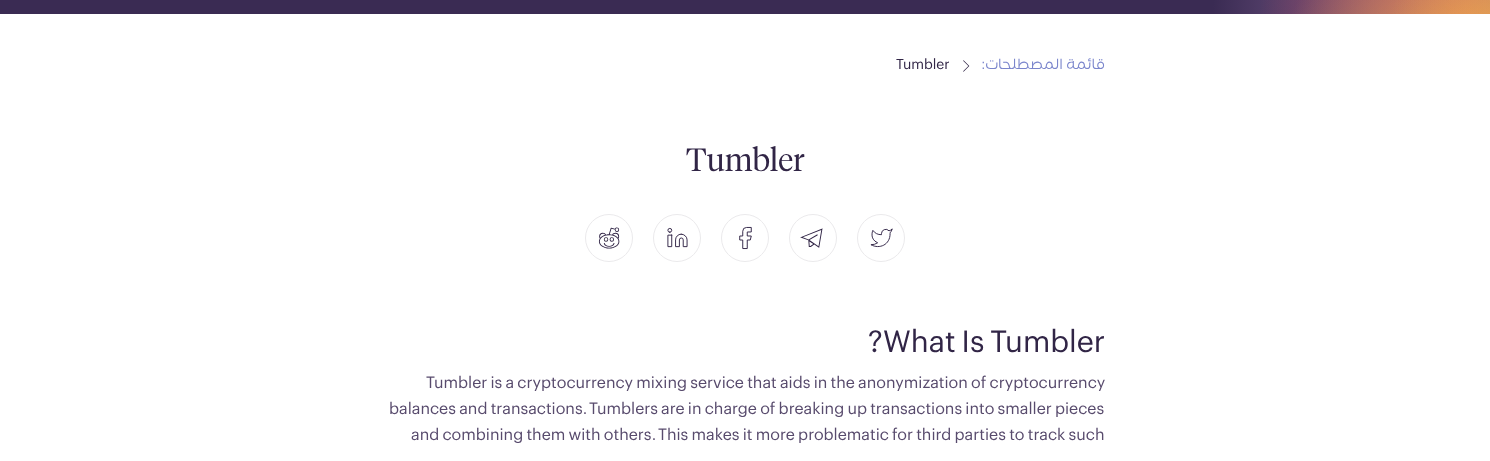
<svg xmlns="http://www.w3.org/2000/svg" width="1490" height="461">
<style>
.a{font:14px Graphik;fill:#312546}
.b{font:14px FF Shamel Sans;direction:rtl;fill:#7a85cc}
.c{font:300 32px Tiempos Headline;fill:#312546}
.d{font:30px Graphik;fill:#312546}
.e{font:16px Graphik;fill:#584b6d}
.f{font:16px FF Shamel Sans;fill:#584b6d}
</style>
<defs>
<clipPath id="clip1"><path d="M0 0h1490v14H0z"/></clipPath>
<radialGradient id="g1" gradientUnits="userSpaceOnUse" cx="1465" cy="11" r="252"><stop offset="0" stop-color="#a67fb1"/><stop offset="1" stop-color="#3a2b53"/></radialGradient>
<radialGradient id="g2" gradientUnits="userSpaceOnUse" cx="0" cy="0" r="1" gradientTransform="matrix(207 0 0 206 1465 27)"><stop offset="0" stop-color="#e52517" stop-opacity="0.6"/><stop offset="1" stop-color="#e52517" stop-opacity="0"/></radialGradient>
<radialGradient id="g3" gradientUnits="userSpaceOnUse" cx="1465" cy="88" r="189"><stop offset="0" stop-color="#ffed4c" stop-opacity="0.6"/><stop offset="1" stop-color="#ffed4c" stop-opacity="0"/></radialGradient>
<radialGradient id="g4" gradientUnits="userSpaceOnUse" cx="1578" cy="39" r="189"><stop offset="0" stop-color="#ffeb4c" stop-opacity="0.4"/><stop offset="1" stop-color="#ffeb4c" stop-opacity="0"/></radialGradient>
</defs>
<rect width="100%" height="100%" fill="#3a2b53"/>
<g clip-path="url(#clip1)">
<circle fill="url(#g1)" cx="1465" cy="11" r="252"/>
<circle fill="url(#g2)" cx="1465" cy="27.5" r="206.5"/>
<circle fill="url(#g3)" cx="1465" cy="87.5" r="188.5"/>
<circle fill="url(#g4)" cx="1577.5" cy="39" r="188.5"/>
</g>
<path fill="#fff" d="M0 14h1490v447H0z"/>
<image href="1.png" x="963" y="60" width="7" height="12"/>
<circle fill="none" stroke="#ebeaec" cx="609" cy="238" r="23.5"/>
<image href="2.png" x="598" y="227" width="22" height="22"/>
<circle fill="none" stroke="#ebeaec" cx="677" cy="238" r="23.5"/>
<image href="3.png" x="667" y="227" width="21" height="21"/>
<circle fill="none" stroke="#ebeaec" cx="745" cy="238" r="23.5"/>
<image href="4.png" x="739" y="226" width="13" height="24"/>
<circle fill="none" stroke="#ebeaec" cx="813" cy="238" r="23.5"/>
<image href="5.png" x="800" y="228" width="23" height="20"/>
<circle fill="none" stroke="#ebeaec" cx="881" cy="238" r="23.5"/>
<image href="6.png" x="870" y="228" width="23" height="20"/>
<text class="a" x="896" y="69">Tumbler</text>
<text class="b" x="1105" y="69" word-spacing="1">قائمة المصطلحات:</text>
<text class="c" x="686" y="171">Tumbler</text>
<text class="d" x="868" y="352">?</text>
<text class="d" x="883" y="352" word-spacing="-2">What Is Tumbler</text>
<text class="e" x="426" y="388" word-spacing="-1">Tumbler is a cryptocurrency mixing service that aids in the anonymization of cryptocurrency</text>
<text class="e" x="389" y="414" word-spacing="-1">balances and transactions</text>
<text class="f" x="583" y="414">.</text>
<text class="e" x="589" y="414" word-spacing="-1">Tumblers are in charge of breaking up transactions into smaller pieces</text>
<text class="e" x="411" y="440" word-spacing="-1">and combining them with others</text>
<text class="f" x="652" y="440">.</text>
<text class="e" x="658" y="440" word-spacing="-1">This makes it more problematic for third parties to track such</text>
</svg>
